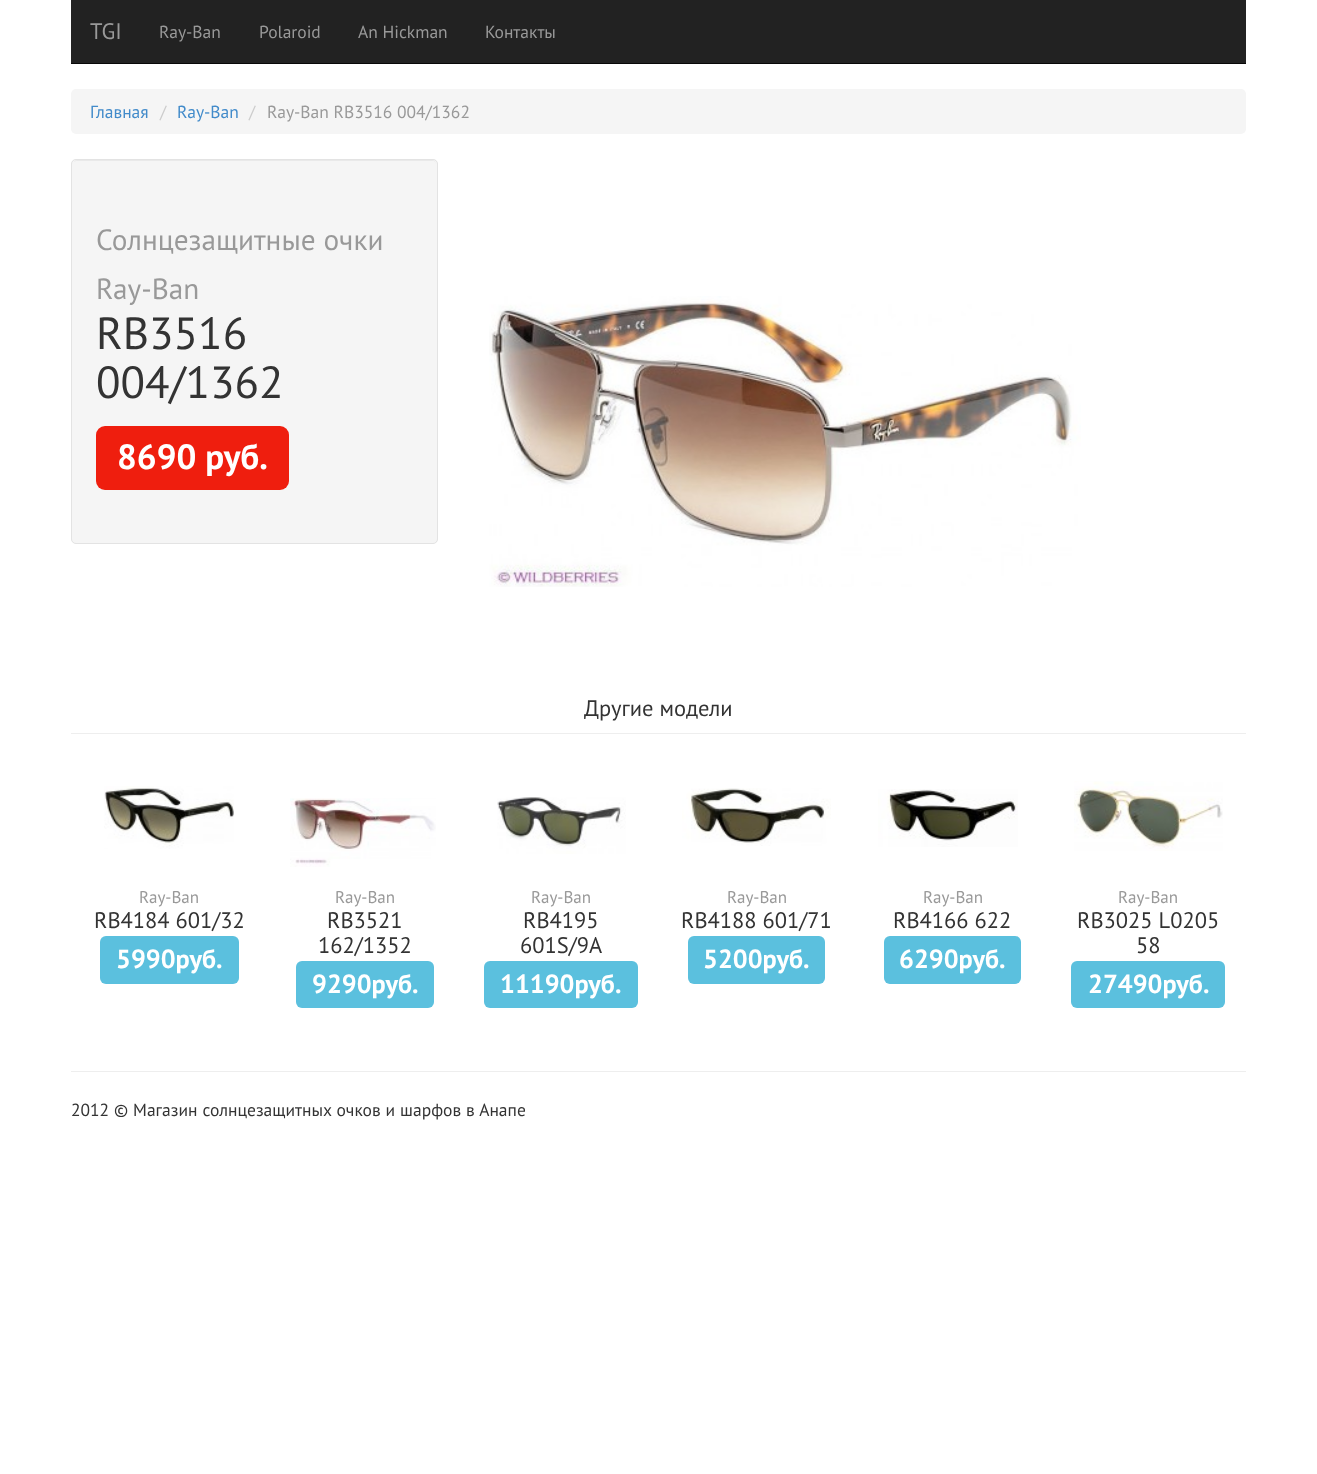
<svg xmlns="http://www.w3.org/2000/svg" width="1317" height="1474">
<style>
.a{font:22.5px PT Sans;fill:#999}
.b{font:17.5px PT Sans;fill:#999}
.c{font:17.5px PT Sans;fill:#428bca}
.d{font:17.5px PT Sans;fill:#ccc}
.e{font:29.25px PT Sans;fill:#999}
.f{font:45px PT Sans;fill:#333}
.g{font:bold 35px PT Sans;fill:#fff}
.h{font:22.5px PT Sans;fill:#333}
.i{font:17px PT Sans;fill:#999}
.j{font:bold 26.25px PT Sans;fill:#fff}
.k{font:17.5px PT Sans;fill:#333}
</style>
<rect width="100%" height="100%" fill="#fff"/>
<path fill="#222" d="M71 0h1175v63H71z"/>
<path fill="#080808" d="M71 63h1175v1H71z"/>
<rect fill="#f5f5f5" x="71" y="89" width="1175" height="45" rx="5"/>
<rect fill="#f5f5f5" x="71" y="159" width="367" height="385" rx="5"/>
<path fill="#e9e9e9" d="M76 161h358l2 2v2v-1c0-2-2-4-4-4h-355c-1 0-3 1-3 2z"/>
<rect fill="none" stroke="#e3e3e3" x="71.5" y="159.5" width="366" height="384" rx="4.5"/>
<rect fill="#ef1e0e" x="96" y="426" width="193" height="64" rx="9"/>
<image href="1.png" x="489" y="296" width="592" height="291"/>
<path fill="#eee" d="M71 733h1175v1H71z"/>
<image href="2.png" x="104" y="786" width="130" height="63"/>
<rect fill="#5bc0de" x="100" y="936" width="139" height="48" rx="6"/>
<image href="3.png" x="290" y="798" width="146" height="69"/>
<rect fill="#5bc0de" x="296" y="961" width="138" height="47" rx="6"/>
<image href="4.png" x="497" y="797" width="129" height="57"/>
<rect fill="#5bc0de" x="484" y="961" width="154" height="47" rx="6"/>
<image href="5.png" x="682" y="788" width="149" height="58"/>
<rect fill="#5bc0de" x="688" y="936" width="137" height="48" rx="6"/>
<image href="6.png" x="878" y="789" width="140" height="58"/>
<rect fill="#5bc0de" x="884" y="936" width="137" height="48" rx="6"/>
<image href="7.png" x="1074" y="781" width="149" height="70"/>
<rect fill="#5bc0de" x="1071" y="961" width="154" height="47" rx="6"/>
<path fill="#eee" d="M71 1071h1175v1H71z"/>
<text class="a" x="90" y="39">TGI</text>
<text class="b" x="159" y="38">Ray-Ban</text>
<text class="b" x="259" y="38">Polaroid</text>
<text class="b" x="358" y="38">An Hickman</text>
<text class="b" x="485" y="38">Контакты</text>
<text class="c" x="90" y="118">Главная</text>
<text class="d" x="160" y="118">/</text>
<text class="c" x="177" y="118">Ray-Ban</text>
<text class="d" x="249" y="118">/</text>
<text class="b" x="267" y="118">Ray-Ban RB3516 004/1362</text>
<text class="e" x="96" y="250">Солнцезащитные очки</text>
<text class="e" x="96" y="299">Ray-Ban</text>
<text class="f" x="96" y="349">RB3516</text>
<text class="f" x="96" y="398">004/1362</text>
<text class="g" x="117" y="469">8690 руб.</text>
<text class="h" x="584" y="716">Другие модели</text>
<text class="i" x="139" y="903">Ray-Ban</text>
<text class="h" x="94" y="928">RB4184 601/32</text>
<text class="j" x="116" y="968">5990руб.</text>
<text class="i" x="335" y="903">Ray-Ban</text>
<text class="h" x="327" y="928">RB3521</text>
<text class="h" x="318" y="953">162/1352</text>
<text class="j" x="312" y="993">9290руб.</text>
<text class="i" x="531" y="903">Ray-Ban</text>
<text class="h" x="523" y="928">RB4195</text>
<text class="h" x="520" y="953">601S/9A</text>
<text class="j" x="500" y="993">11190руб.</text>
<text class="i" x="727" y="903">Ray-Ban</text>
<text class="h" x="681" y="928">RB4188 601/71</text>
<text class="j" x="703" y="968">5200руб.</text>
<text class="i" x="923" y="903">Ray-Ban</text>
<text class="h" x="893" y="928">RB4166 622</text>
<text class="j" x="899" y="968">6290руб.</text>
<text class="i" x="1118" y="903">Ray-Ban</text>
<text class="h" x="1077" y="928">RB3025 L0205</text>
<text class="h" x="1136" y="953">58</text>
<text class="j" x="1088" y="993">27490руб.</text>
<text class="k" x="71" y="1116" word-spacing="0.25">2012 © Магазин солнцезащитных очков и шарфов в Анапе</text>
</svg>
